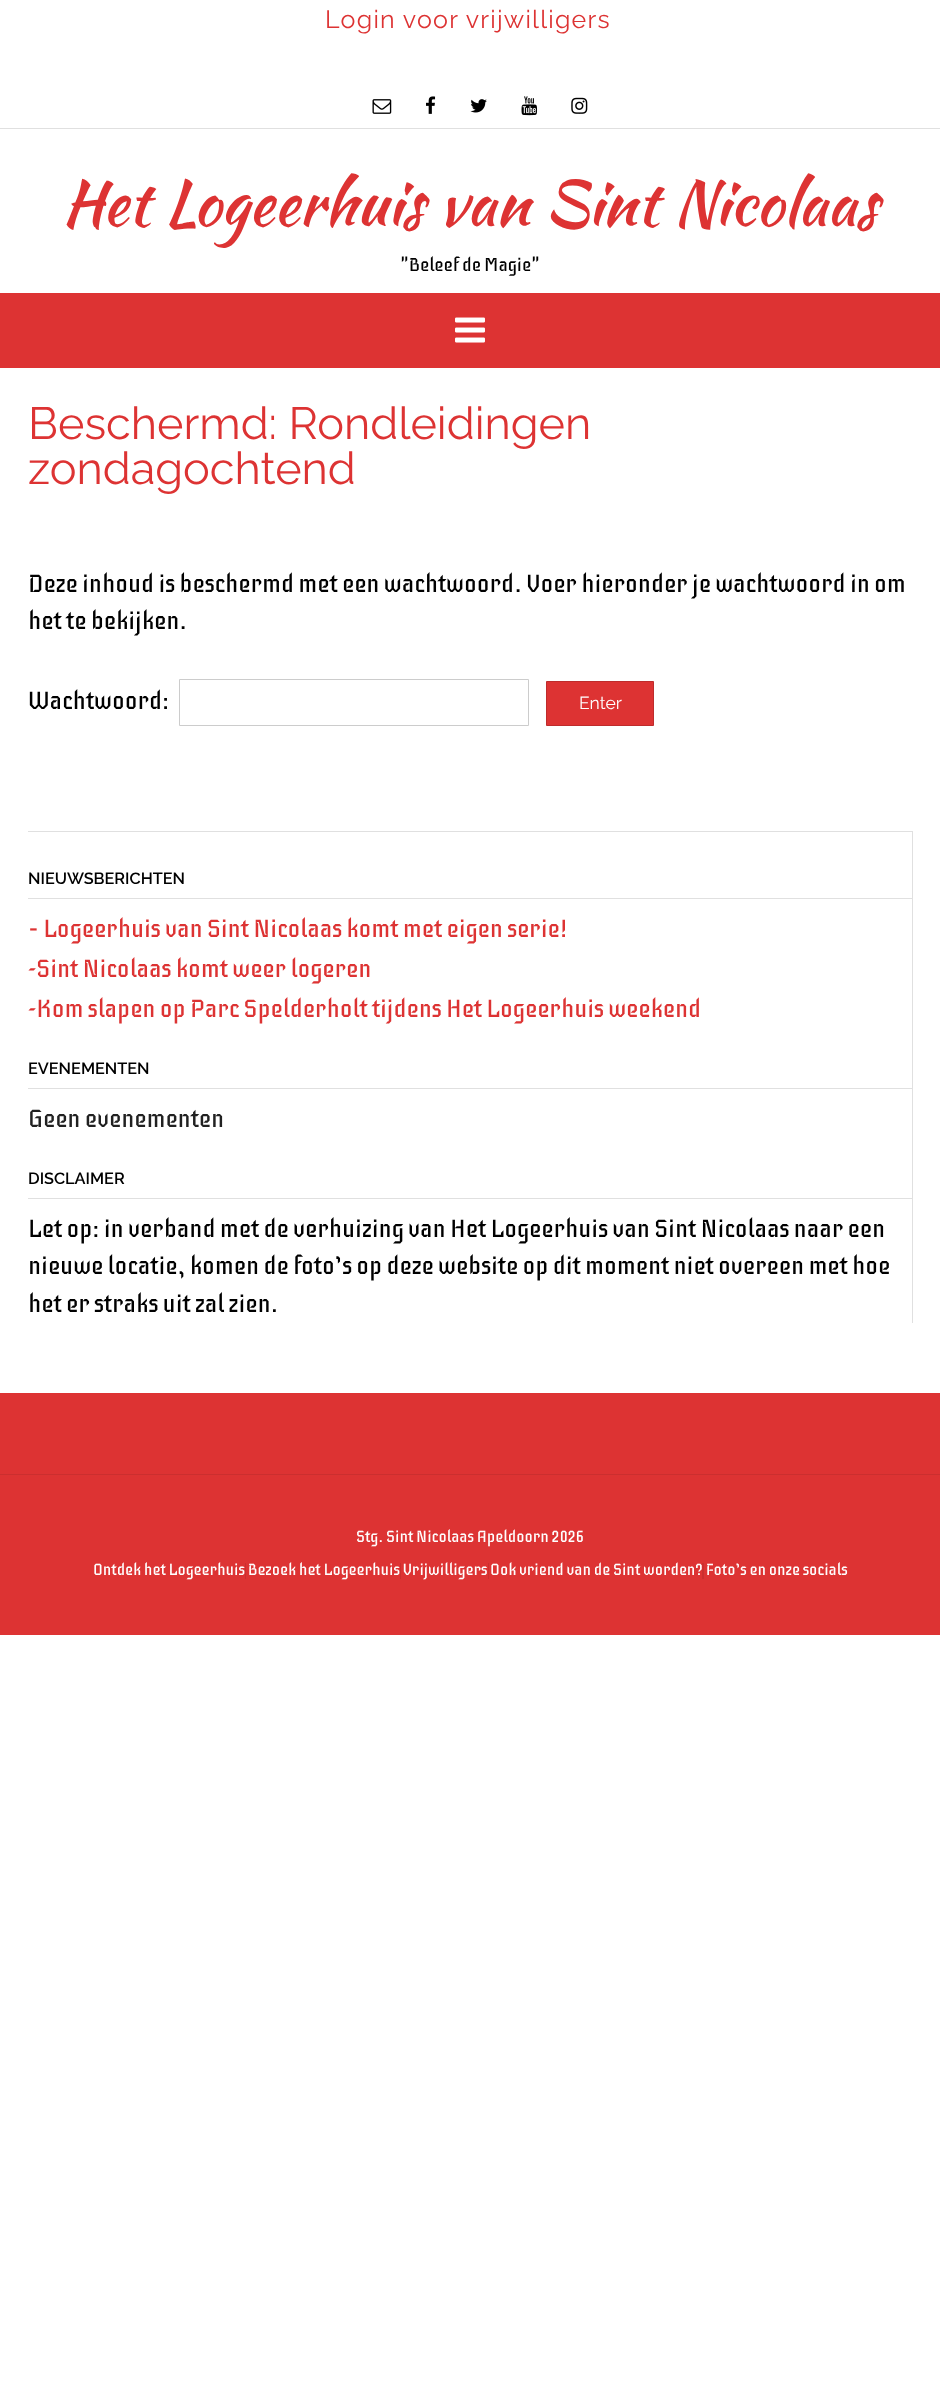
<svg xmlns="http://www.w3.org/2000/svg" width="940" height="2392">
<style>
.a{font:25px Raleway;letter-spacing:1.25px;fill:#d33}
.b{font:62.5px Kaushan Script;fill:#d33}
.c{font:18.75px Iceberg;fill:#000}
.d{font:45px Raleway;fill:#d33}
.e{font:25px Iceberg;fill:#000}
.f{font:17.5px Raleway;fill:#fff}
.g{font:600 16.25px Raleway;fill:#000}
.h{font:25px Iceberg;fill:#d33}
.i{font:25px Iceberg;fill:#212121}
.j{font:16.25px Iceberg;fill:#fff}
</style>
<rect width="100%" height="100%" fill="#fff"/>
<path fill="#e0e0e0" d="M0 128h940v1H0z"/>
<image href="1.png" x="372" y="99" width="20" height="15"/>
<image href="2.png" x="426" y="96" width="10" height="18"/>
<image href="3.png" x="470" y="99" width="17" height="14"/>
<image href="4.png" x="521" y="96" width="17" height="20"/>
<image href="5.png" x="571" y="97" width="17" height="17"/>
<path fill="#d33" d="M0 293h940v75H0z"/>
<image href="6.png" x="455" y="317" width="30" height="26"/>
<path fill="none" stroke="#ccc" d="M179.5 679.5h349v46H179.5z"/>
<path fill="#d33" stroke="#be2c2c" d="M546.5 681.5h107v44H546.5z"/>
<path fill="#e0e0e0" d="M28 831v1h884v491h1v-492z"/>
<path fill="#e0e0e0" d="M28 898h885v1H28z"/>
<path fill="#e0e0e0" d="M28 1088h885v1H28z"/>
<path fill="#e0e0e0" d="M28 1198h885v1H28z"/>
<path fill="#d33" d="M0 1393h940v242H0z"/>
<path fill="#cb2f2f" d="M0 1474h940v1H0z"/>
<path fill="#cb2f2f" d="M94 1579h152v-16h-1v16z"/>
<text class="a" x="325" y="28">Login voor vrijwilligers</text>
<text class="b" x="62" y="225">Het Logeerhuis van Sint Nicolaas</text>
<text class="c" x="400" y="271">"Beleef de Magie"</text>
<text class="d" x="28" y="439">Beschermd: Rondleidingen</text>
<text class="d" x="28" y="484">zondagochtend</text>
<text class="e" x="28" y="592">Deze inhoud is beschermd met een wachtwoord. Voer hieronder je wachtwoord in om</text>
<text class="e" x="28" y="629">het te bekijken.</text>
<text class="e" x="28" y="709">Wachtwoord:</text>
<text class="f" x="579" y="709">Enter</text>
<text class="g" x="28" y="884">NIEUWSBERICHTEN</text>
<text class="h" x="28" y="937">– Logeerhuis van Sint Nicolaas komt met eigen serie!</text>
<text class="h" x="28" y="977">-Sint Nicolaas komt weer logeren</text>
<text class="h" x="28" y="1017">-Kom slapen op Parc Spelderholt tijdens Het Logeerhuis weekend</text>
<text class="g" x="28" y="1074">EVENEMENTEN</text>
<text class="i" x="28" y="1127">Geen evenementen</text>
<text class="g" x="28" y="1184">DISCLAIMER</text>
<text class="e" x="28" y="1237">Let op: in verband met de verhuizing van Het Logeerhuis van Sint Nicolaas naar een</text>
<text class="e" x="28" y="1274">nieuwe locatie, komen de foto’s op deze website op dit moment niet overeen met hoe</text>
<text class="e" x="28" y="1312">het er straks uit zal zien.</text>
<text class="j" x="356" y="1542">Stg. Sint Nicolaas Apeldoorn 2026</text>
<text class="j" x="93" y="1575">Ontdek het Logeerhuis Bezoek het Logeerhuis Vrijwilligers Ook vriend van de Sint worden? Foto’s en onze socials</text>
<path fill="#cb2f2f" d="M249 1579h152v-16h-1v16z"/>
<path fill="#cb2f2f" d="M404 1579h85v-16h-1v16z"/>
<path fill="#cb2f2f" d="M491 1579h213v-16h-2v16z"/>
</svg>
